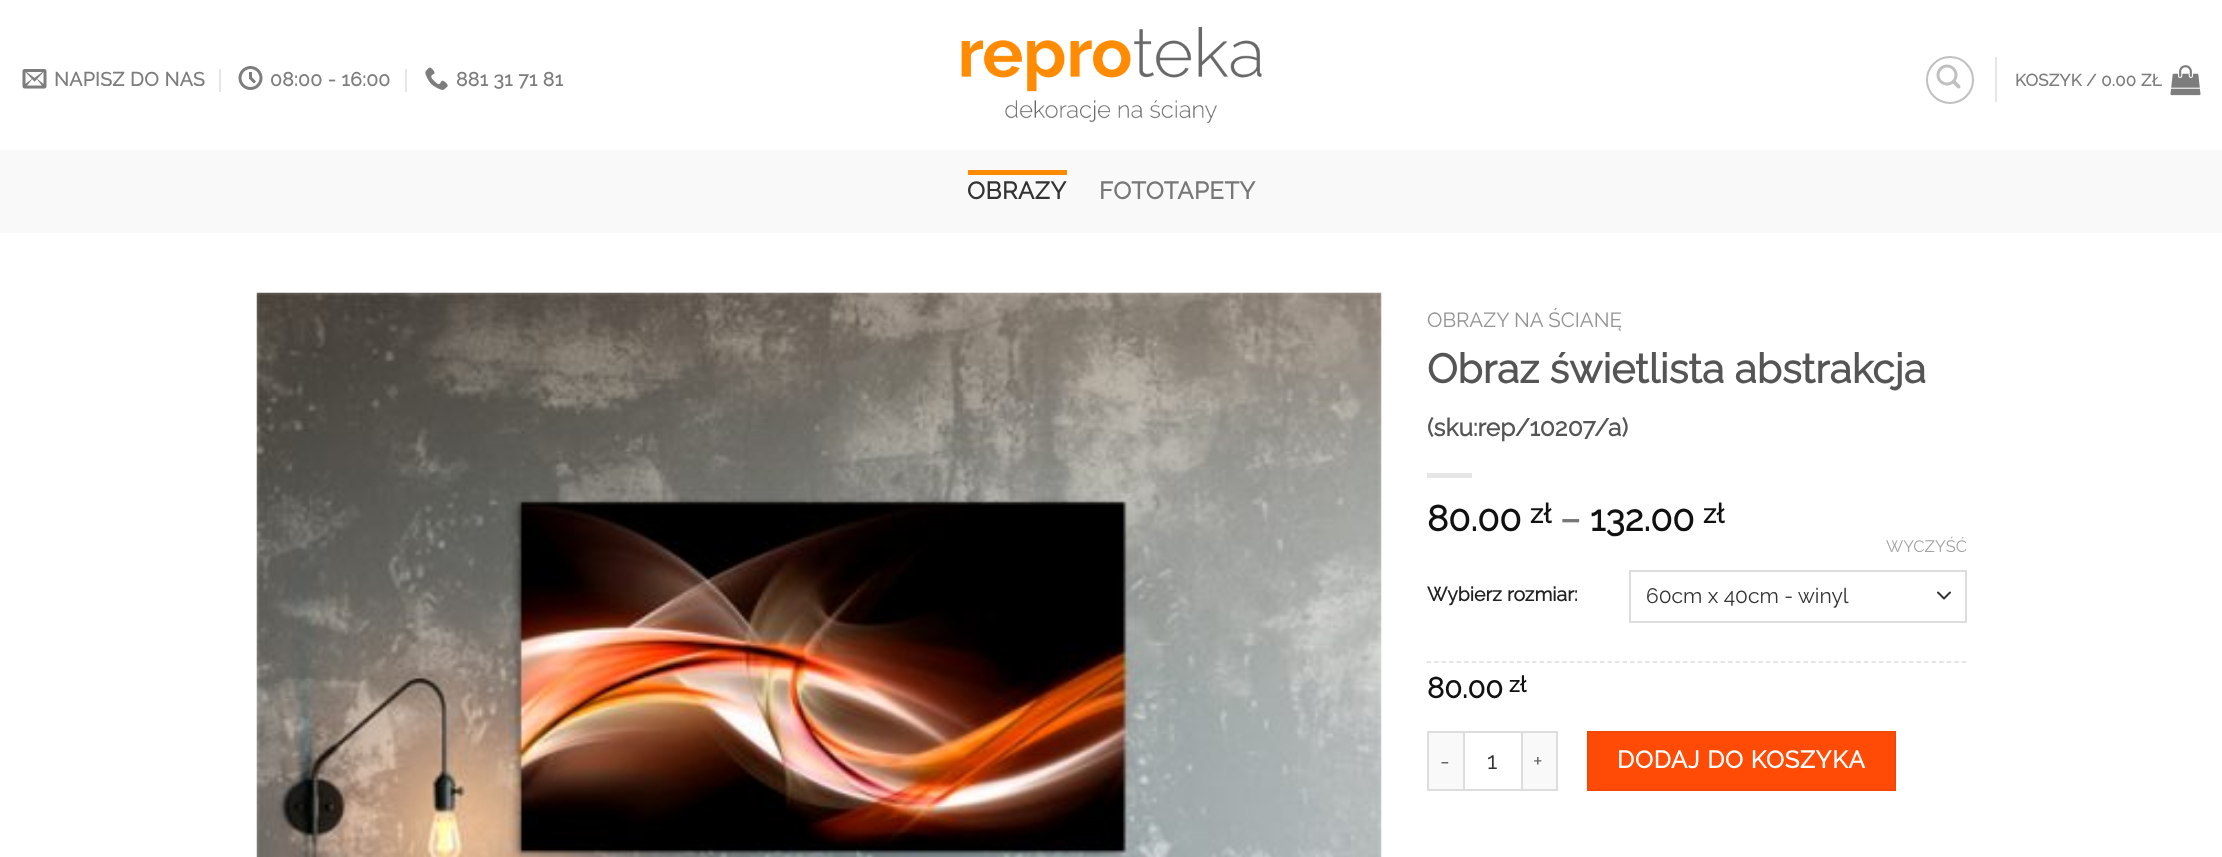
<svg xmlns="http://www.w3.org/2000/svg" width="2222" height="857">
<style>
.a{font:bold 19.25px Raleway;letter-spacing:0.4px;fill:#7d7d7d}
.b{font:bold 16.75px Raleway;letter-spacing:0.3px;fill:#7d7d7d}
.c{font:bold 24px Raleway;letter-spacing:0.5px;fill:#333}
.d{font:bold 24px Raleway;letter-spacing:0.5px;fill:#777}
.e{font:100 20.5px Raleway;fill:#949494}
.f{font:bold 40.75px Raleway;fill:#555}
.g{font:bold 24.5px Raleway;fill:#555}
.h{font:bold 36px Raleway;fill:#111}
.i{font:bold 27px Raleway;fill:#111}
.j{font:bold 36px Raleway;fill:#777}
.k{font:bold 19.5px Raleway;fill:#222}
.l{font:100 16.5px Raleway;fill:#a3a3a3}
.m{font:100 21px Raleway;fill:#333}
.n{font:bold 29px Raleway;fill:#111}
.o{font:bold 22px Raleway;fill:#111}
.p{font:100 23px Raleway;letter-spacing:1px;fill:#666}
.q{font:100 24px Raleway;fill:#333}
.r{font:bold 24px Raleway;letter-spacing:0.75px;fill:#fff}
</style>
<rect width="100%" height="100%" fill="#fff"/>
<image href="1.png" x="22" y="69" width="25" height="20"/>
<path fill="#e6e6e6" d="M219 69h2v23H219z"/>
<image href="2.png" x="238" y="66" width="25" height="24"/>
<path fill="#e6e6e6" d="M405 69h2v23H405z"/>
<image href="3.png" x="425" y="67" width="23" height="23"/>
<image href="4.png" x="961" y="27" width="301" height="96"/>
<circle fill="none" stroke="#c0c0c0" stroke-width="2" cx="1950" cy="80" r="23"/>
<image href="5.png" x="1936" y="64" width="25" height="25"/>
<path fill="#e6e6e6" d="M1995 57h2v45H1995z"/>
<image href="6.png" x="2170" y="65" width="31" height="31"/>
<path fill="#f9f9f9" d="M0 150h2222v83H0z"/>
<path fill="#ff8b03" d="M968 170h99v5H968z"/>
<image href="7.png" x="256" y="292" width="1126" height="565"/>
<path fill="#e6e6e6" d="M1427 473h45v5H1427z"/>
<path fill="none" stroke="#333" stroke-width="2" stroke-linecap="round" stroke-linejoin="round" d="M1938 592.5l6 6l6-6"/>
<path fill="none" stroke="#ddd" stroke-width="2" d="M1630 571h336v51H1630z"/>
<path fill="none" stroke="#ddd" stroke-width="1.5" stroke-dasharray="4.5 3.04" d="M1426.5 662h540"/>
<path fill="#f9f9f9" d="M1429 733h34v56H1429z"/>
<path fill="#ddd" d="M1427 731h36v2H1427z"/>
<path fill="#ddd" d="M1427 789h36v2H1427z"/>
<path fill="#ddd" d="M1427 731h2v60H1427z"/>
<path fill="none" stroke="#ddd" stroke-width="2" d="M1464 732h58v58H1464z"/>
<path fill="#f9f9f9" d="M1523 733h33v56H1523z"/>
<path fill="#ddd" d="M1523 731h34v2H1523z"/>
<path fill="#ddd" d="M1556 731h2v60H1556z"/>
<path fill="#ddd" d="M1523 789h34v2H1523z"/>
<path fill="#ff4b05" stroke="#f24705" stroke-width="2" d="M1588 732h307v58H1588z"/>
<text class="a" x="54" y="86">NAPISZ DO NAS</text>
<text class="a" x="270" y="86">08:00 - 16:00</text>
<text class="a" x="456" y="86">881 31 71 81</text>
<text class="b" x="2015" y="86">KOSZYK / 0.00 ZŁ</text>
<text class="c" x="967" y="199">OBRAZY</text>
<text class="d" x="1099" y="199">FOTOTAPETY</text>
<text class="e" x="1427" y="327">OBRAZY NA ŚCIANĘ</text>
<text class="f" x="1427" y="383">Obraz świetlista abstrakcja</text>
<text class="g" x="1427" y="436">(sku:rep/10207/a)</text>
<text class="h" x="1427" y="531">80.00</text>
<text class="i" x="1530" y="523">zł</text>
<text class="j" x="1560" y="531">–</text>
<text class="h" x="1590" y="531">132.00</text>
<text class="i" x="1703" y="523">zł</text>
<text class="k" x="1427" y="601">Wybierz rozmiar:</text>
<text class="l" x="1886" y="552">WYCZYŚĆ</text>
<text class="m" x="1646" y="603">60cm x 40cm - winyl</text>
<text class="n" x="1427" y="698">80.00</text>
<text class="o" x="1509" y="692">zł</text>
<text class="p" x="1440" y="769">-</text>
<text class="q" x="1487" y="769">1</text>
<text class="p" x="1533" y="769">+</text>
<text class="r" x="1617" y="768">DODAJ DO KOSZYKA</text>
</svg>
